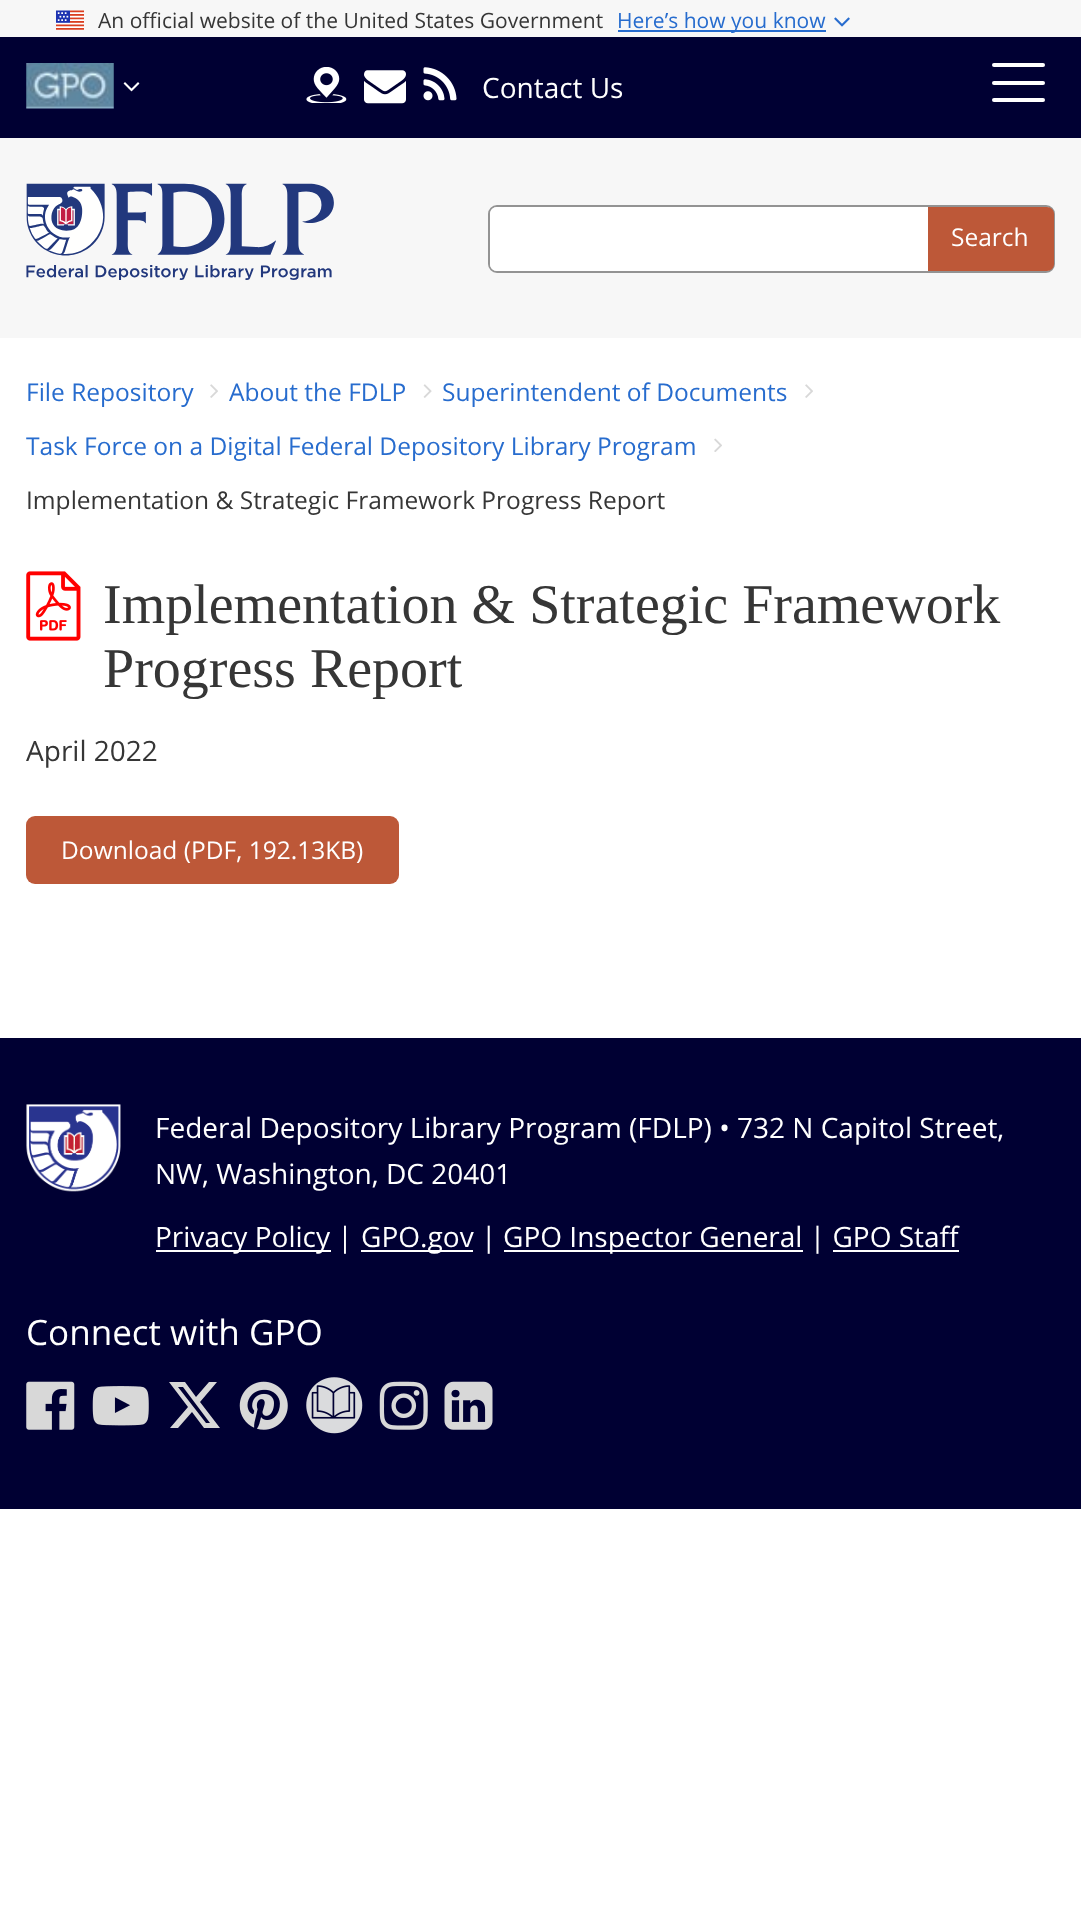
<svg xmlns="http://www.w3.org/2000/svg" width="1081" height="1914">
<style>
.a{font:21px Open Sans;fill:#363636}
.b{font:21px Open Sans;fill:#276cce}
.c{font:28px Open Sans;fill:#fff}
.d{font:24.5px Open Sans;fill:#fff}
.e{font:24.5px Open Sans;fill:#276cce}
.f{font:24.5px Open Sans;fill:#363636}
.g{font:56px Liberation Serif;fill:#363636}
.h{font:28px Open Sans;fill:#363636}
.i{font:35px Open Sans;fill:#fff}
</style>
<rect width="100%" height="100%" fill="#fff"/>
<path fill="#f7f7f7" d="M0 0h1081v37H0z"/>
<image href="1.png" x="56" y="10" width="28" height="20"/>
<path fill="#276cce" d="M618 30h208v2H618z"/>
<image href="2.png" x="834" y="17" width="16" height="10"/>
<path fill="#003" d="M0 37h1081v101H0z"/>
<image href="3.png" x="26" y="63" width="88" height="46"/>
<image href="4.png" x="123" y="82" width="17" height="10"/>
<image href="5.png" x="306" y="67" width="41" height="36"/>
<image href="6.png" x="364" y="70" width="42" height="34"/>
<image href="7.png" x="423" y="67" width="34" height="34"/>
<rect fill="#fff" x="992" y="81" width="53" height="4" rx="2"/>
<rect fill="#fff" x="992" y="63" width="53" height="4" rx="2"/>
<rect fill="#fff" x="992" y="98" width="53" height="4" rx="2"/>
<path fill="#f7f7f7" d="M0 138h1081v200H0z"/>
<image href="8.png" x="26" y="183" width="308" height="97"/>
<rect fill="none" stroke="#939393" stroke-width="2" x="489" y="206" width="565" height="66" rx="8"/>
<path fill="#fff" d="M497 207h431v64h-431c-4 0-7-3-7-7v-50c0-4 3-7 7-7z"/>
<path fill="#bd5838" d="M928 207h119c4 0 7 3 7 7v50c0 4-3 7-7 7h-119z"/>
<image href="9.png" x="210" y="384" width="8" height="14"/>
<image href="10.png" x="423" y="384" width="9" height="14"/>
<image href="9.png" x="805" y="384" width="8" height="14"/>
<image href="11.png" x="714" y="438" width="8" height="14"/>
<image href="12.png" x="26" y="571" width="55" height="70"/>
<rect fill="#bd5838" x="26" y="816" width="373" height="68" rx="9"/>
<path fill="#003" d="M0 1038h1081v471H0z"/>
<image href="13.png" x="26" y="1104" width="95" height="88"/>
<path fill="#fff" d="M156 1250h175v2H156z"/>
<path fill="#fff" d="M361 1250h112v2H361z"/>
<path fill="#fff" d="M504 1250h299v2H504z"/>
<path fill="#fff" d="M833 1250h126v2H833z"/>
<image href="14.png" x="26" y="1381" width="49" height="49"/>
<image href="15.png" x="92" y="1386" width="57" height="40"/>
<path fill="#d8d8d8" d="M209 1382h8l-17 20l20 26h-16l-12-16l-14 16h-8l18-21l-19-25h16l11 15zm-3 41h4l-27-36h-5z"/>
<image href="16.png" x="239" y="1381" width="49" height="49"/>
<image href="17.png" x="306" y="1377" width="57" height="57"/>
<image href="18.png" x="379" y="1381" width="49" height="49"/>
<image href="19.png" x="444" y="1381" width="49" height="49"/>
<text class="a" x="98" y="28">An official website of the United States Government</text>
<text class="b" x="617" y="28">Here’s how you know</text>
<text class="c" x="482" y="98">Contact Us</text>
<text class="d" x="951" y="246">Search</text>
<text class="e" x="26" y="401">File Repository</text>
<text class="e" x="229" y="401">About the FDLP</text>
<text class="e" x="442" y="401">Superintendent of Documents</text>
<text class="e" x="26" y="455">Task Force on a Digital Federal Depository Library Program</text>
<text class="f" x="26" y="509">Implementation &amp; Strategic Framework Progress Report</text>
<text class="g" x="103" y="623">Implementation &amp; Strategic Framework</text>
<text class="g" x="103" y="687">Progress Report</text>
<text class="h" x="26" y="761">April 2022</text>
<text class="d" x="61" y="859">Download (PDF, 192.13KB)</text>
<text class="c" x="155" y="1138">Federal Depository Library Program (FDLP) • 732 N Capitol Street,</text>
<text class="c" x="155" y="1184">NW, Washington, DC 20401</text>
<text class="c" x="155" y="1247">Privacy Policy |</text>
<text class="c" x="361" y="1247">GPO.gov |</text>
<text class="c" x="503" y="1247">GPO Inspector General | GPO Staff</text>
<text class="i" x="26" y="1345">Connect with GPO</text>
</svg>
